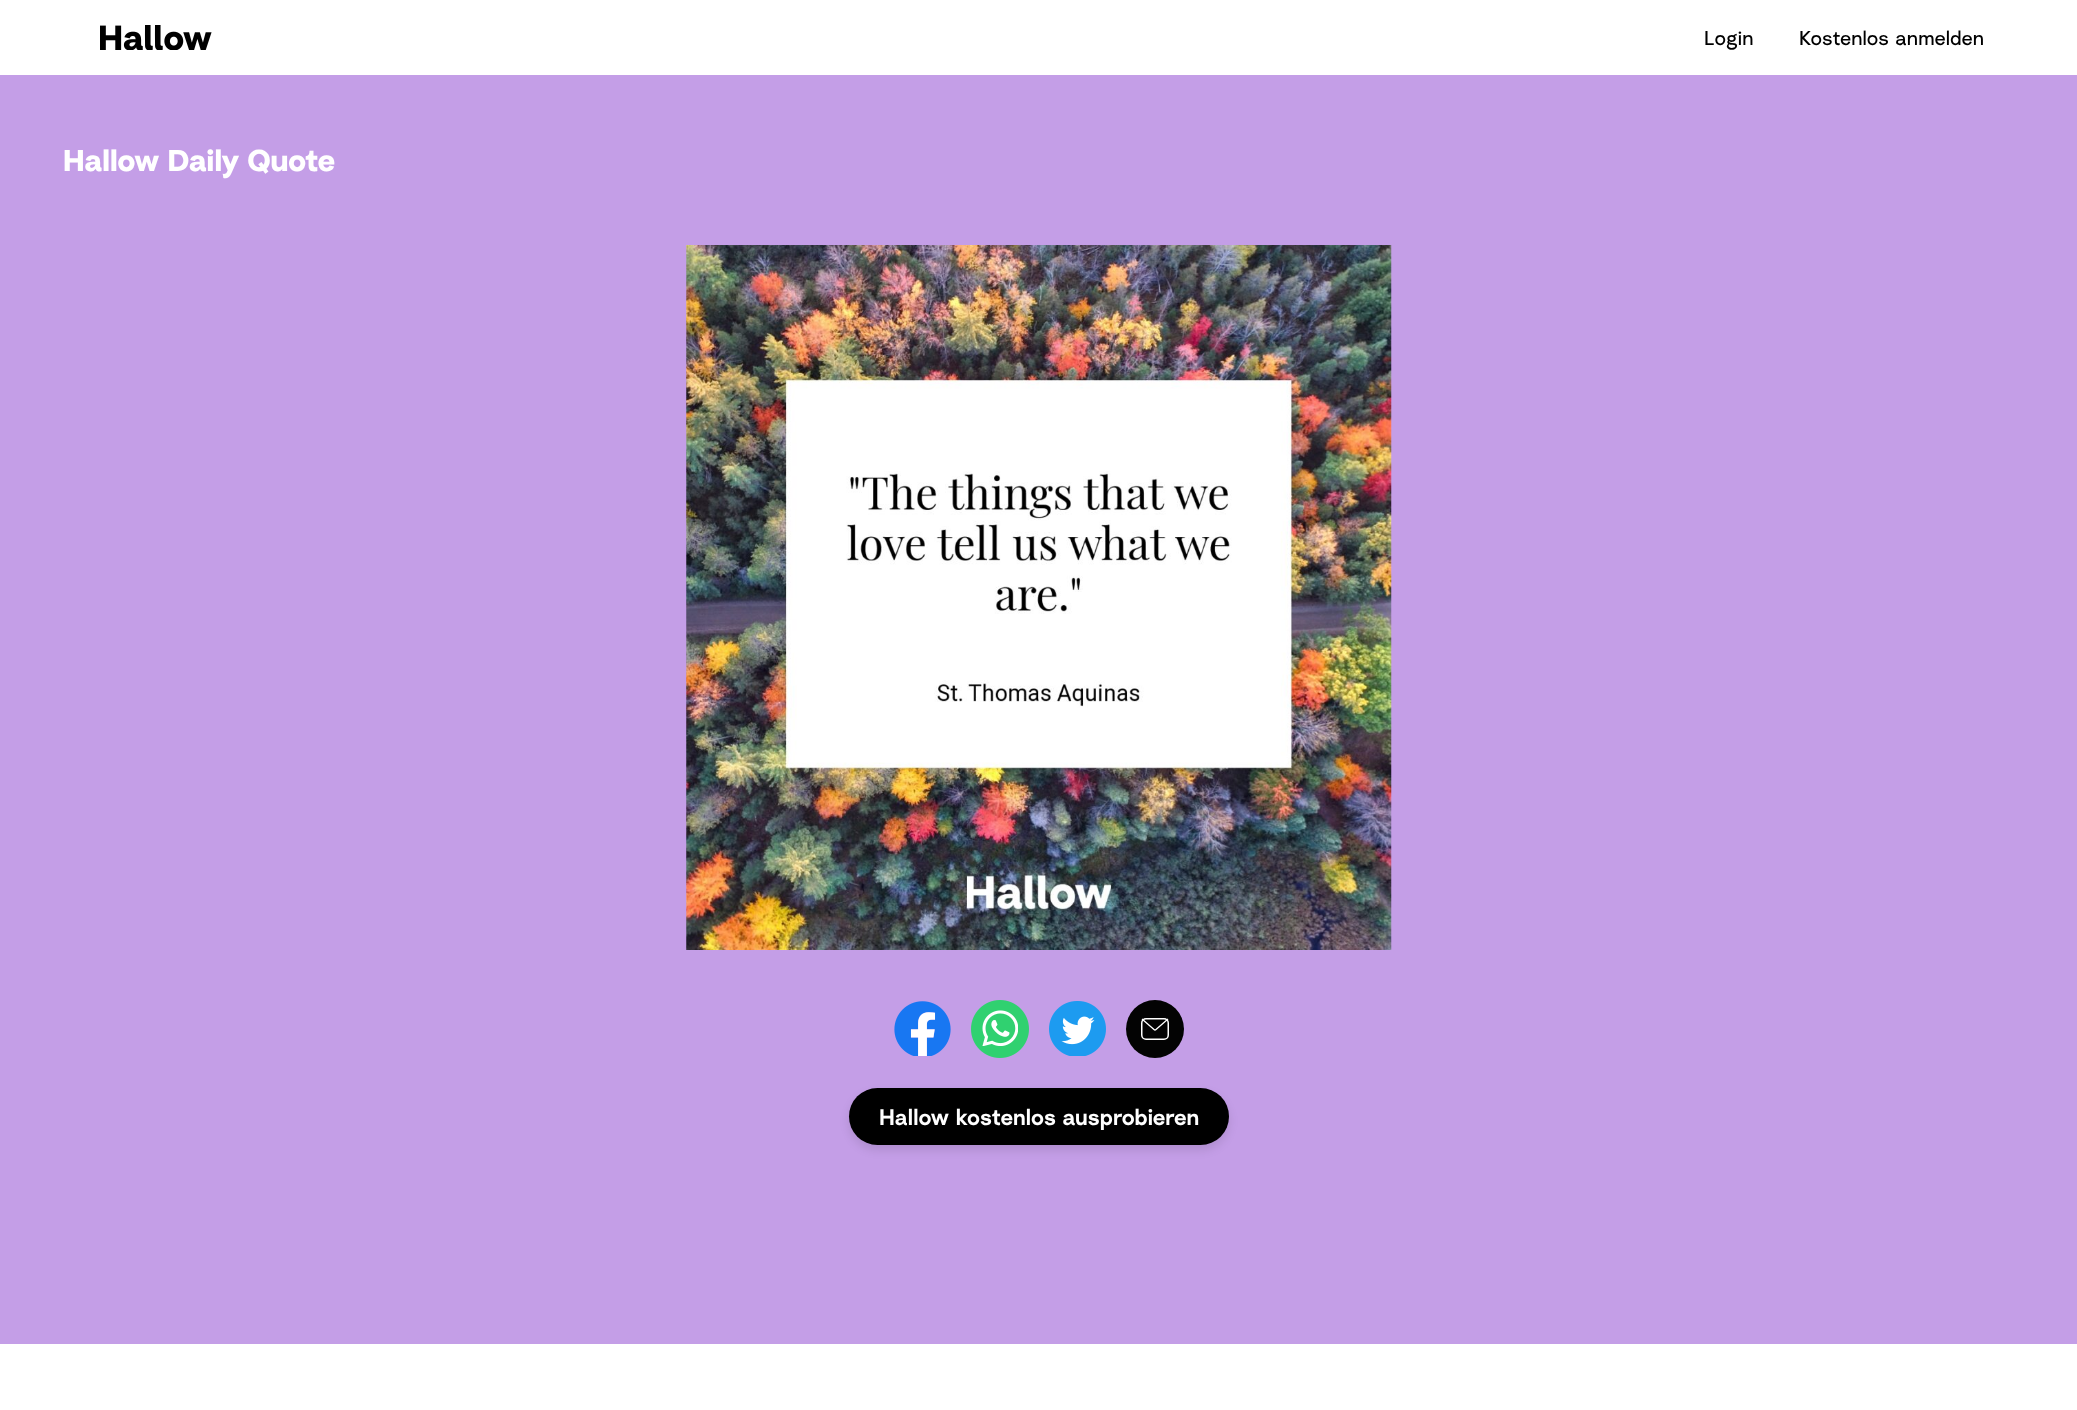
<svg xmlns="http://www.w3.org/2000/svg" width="2077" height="1410">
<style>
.a{font:20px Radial;fill:#000}
.b{font:bold 30px Radial;fill:#fff}
.c{font:600 22.5px Radial;fill:#fff}
</style>
<rect width="100%" height="100%" fill="#fff"/>
<image href="1.png" x="100" y="25" width="112" height="25"/>
<path fill="#c49ee7" d="M0 75h2077v1269H0z"/>
<image href="2.png" x="686" y="245" width="706" height="705"/>
<image href="3.png" x="894" y="1001" width="57" height="55"/>
<image href="4.png" x="971" y="1000" width="58" height="58"/>
<image href="5.png" x="1049" y="1001" width="57" height="55"/>
<circle fill="#030303" cx="1155" cy="1029" r="29"/>
<rect fill="none" stroke="#fff" stroke-width="1.5" x="1141.75" y="1018.75" width="26.5" height="20.5" rx="4.25"/>
<path fill="none" stroke="#fff" stroke-width="1.3" stroke-linejoin="round" d="M1142 1019l12 10.5c.5 .5 1.5 .5 2 0l12-10.5"/>
<rect fill="#0000001a" filter="blur(5px)" x="849" y="1093" width="380" height="57" rx="28.5"/>
<rect fill="#000" x="849" y="1088" width="380" height="57" rx="28.5"/>
<text class="a" x="1704" y="45">Login</text>
<text class="a" x="1799" y="45">Kostenlos anmelden</text>
<text class="b" x="63" y="171">Hallow Daily Quote</text>
<text class="c" x="879" y="1125">Hallow kostenlos ausprobieren</text>
</svg>
